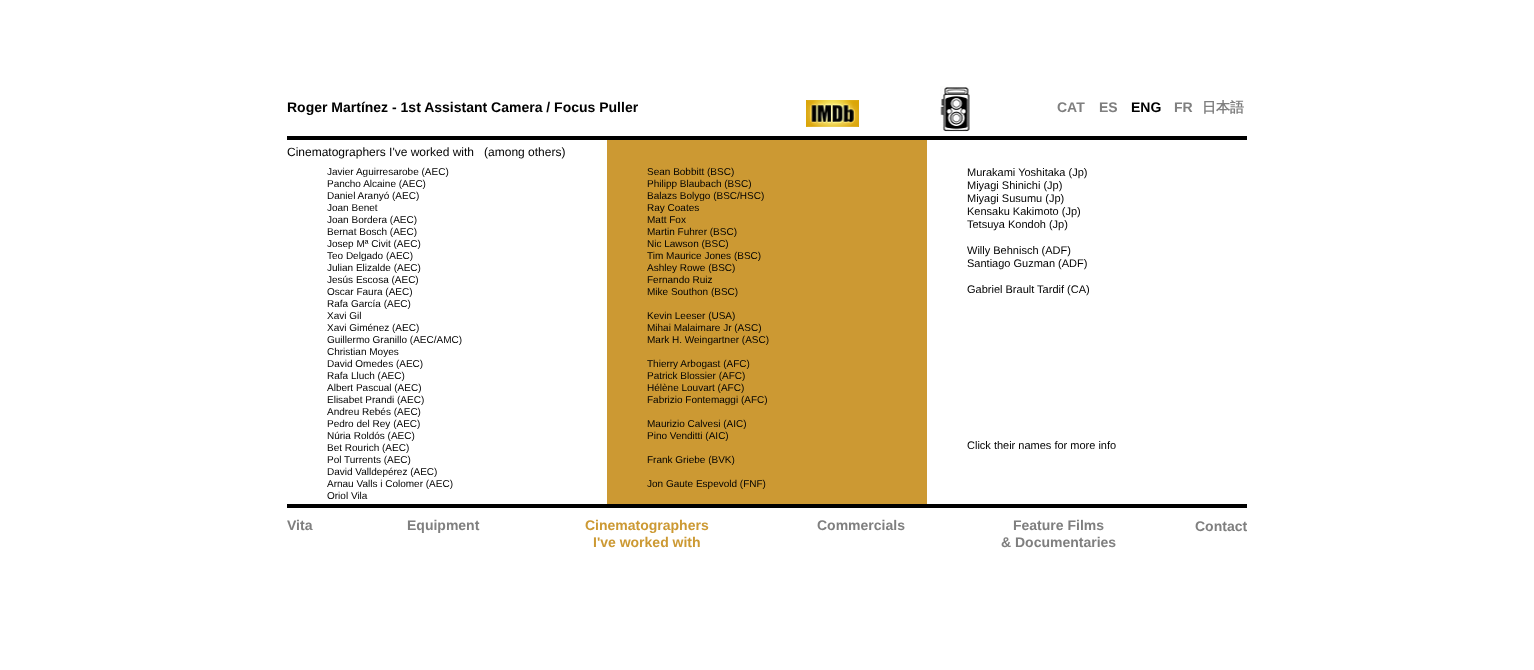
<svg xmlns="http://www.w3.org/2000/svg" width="1534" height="670">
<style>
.a{font:bold 14px Liberation Sans;fill:#000}
.b{font:bold 14px Liberation Sans;fill:#7f7f7f}
.c{font:bold 14px WenQuanYi Zen Hei;fill:#7f7f7f}
.d{font:12px Liberation Sans;fill:#000}
.e{font:10px Liberation Sans;fill:#000}
.f{font:11px Liberation Sans;fill:#000}
.g{font:bold 14px Liberation Sans;fill:#c93}
</style>
<rect width="100%" height="100%" fill="#fff"/>
<image href="1.png" x="806" y="100" width="53" height="27"/>
<image href="2.png" x="940" y="86" width="30" height="46"/>
<path fill="#000" d="M287 136h960v4H287z"/>
<path fill="#000" d="M287 504h960v4H287z"/>
<path fill="#c93" d="M607 140h320v364H607z"/>
<text class="a" x="287" y="112">Roger Martínez - 1st Assistant Camera / Focus Puller</text>
<text class="b" x="1057" y="112">CAT</text>
<text class="b" x="1099" y="112">ES</text>
<text class="a" x="1131" y="112">ENG</text>
<text class="b" x="1174" y="112">FR</text>
<text class="c" x="1202" y="112">日本語</text>
<text class="d" xml:space="preserve" x="287" y="156">Cinematographers I've worked with   (among others)</text>
<text class="e" x="327" y="175">Javier Aguirresarobe (AEC)</text>
<text class="e" x="327" y="187">Pancho Alcaine (AEC)</text>
<text class="e" x="327" y="199">Daniel Aranyó (AEC)</text>
<text class="e" x="327" y="211">Joan Benet</text>
<text class="e" x="327" y="223">Joan Bordera (AEC)</text>
<text class="e" x="327" y="235">Bernat Bosch (AEC)</text>
<text class="e" x="327" y="247">Josep Mª Civit (AEC)</text>
<text class="e" x="327" y="259">Teo Delgado (AEC)</text>
<text class="e" x="327" y="271">Julian Elizalde (AEC)</text>
<text class="e" x="327" y="283">Jesús Escosa (AEC)</text>
<text class="e" x="327" y="295">Oscar Faura (AEC)</text>
<text class="e" x="327" y="307">Rafa García (AEC)</text>
<text class="e" x="327" y="319">Xavi Gil</text>
<text class="e" x="327" y="331">Xavi Giménez (AEC)</text>
<text class="e" x="327" y="343">Guillermo Granillo (AEC/AMC)</text>
<text class="e" x="327" y="355">Christian Moyes</text>
<text class="e" x="327" y="367">David Omedes (AEC)</text>
<text class="e" x="327" y="379">Rafa Lluch (AEC)</text>
<text class="e" x="327" y="391">Albert Pascual (AEC)</text>
<text class="e" x="327" y="403">Elisabet Prandi (AEC)</text>
<text class="e" x="327" y="415">Andreu Rebés (AEC)</text>
<text class="e" x="327" y="427">Pedro del Rey (AEC)</text>
<text class="e" x="327" y="439">Núria Roldós (AEC)</text>
<text class="e" x="327" y="451">Bet Rourich (AEC)</text>
<text class="e" x="327" y="463">Pol Turrents (AEC)</text>
<text class="e" x="327" y="475">David Valldepérez (AEC)</text>
<text class="e" x="327" y="487">Arnau Valls i Colomer (AEC)</text>
<text class="e" x="327" y="499">Oriol Vila</text>
<text class="e" x="647" y="175">Sean Bobbitt (BSC)</text>
<text class="e" x="647" y="187">Philipp Blaubach (BSC)</text>
<text class="e" x="647" y="199">Balazs Bolygo (BSC/HSC)</text>
<text class="e" x="647" y="211">Ray Coates</text>
<text class="e" x="647" y="223">Matt Fox</text>
<text class="e" x="647" y="235">Martin Fuhrer (BSC)</text>
<text class="e" x="647" y="247">Nic Lawson (BSC)</text>
<text class="e" x="647" y="259">Tim Maurice Jones (BSC)</text>
<text class="e" x="647" y="271">Ashley Rowe (BSC)</text>
<text class="e" x="647" y="283">Fernando Ruiz</text>
<text class="e" x="647" y="295">Mike Southon (BSC)</text>
<text class="e" x="647" y="319">Kevin Leeser (USA)</text>
<text class="e" x="647" y="331">Mihai Malaimare Jr (ASC)</text>
<text class="e" x="647" y="343">Mark H. Weingartner (ASC)</text>
<text class="e" x="647" y="367">Thierry Arbogast (AFC)</text>
<text class="e" x="647" y="379">Patrick Blossier (AFC)</text>
<text class="e" x="647" y="391">Hélène Louvart (AFC)</text>
<text class="e" x="647" y="403">Fabrizio Fontemaggi (AFC)</text>
<text class="e" x="647" y="427">Maurizio Calvesi (AIC)</text>
<text class="e" x="647" y="439">Pino Venditti (AIC)</text>
<text class="e" x="647" y="463">Frank Griebe (BVK)</text>
<text class="e" x="647" y="487">Jon Gaute Espevold (FNF)</text>
<text class="f" x="967" y="176">Murakami Yoshitaka (Jp)</text>
<text class="f" x="967" y="189">Miyagi Shinichi (Jp)</text>
<text class="f" x="967" y="202">Miyagi Susumu (Jp)</text>
<text class="f" x="967" y="215">Kensaku Kakimoto (Jp)</text>
<text class="f" x="967" y="228">Tetsuya Kondoh (Jp)</text>
<text class="f" x="967" y="254">Willy Behnisch (ADF)</text>
<text class="f" x="967" y="267">Santiago Guzman (ADF)</text>
<text class="f" x="967" y="293">Gabriel Brault Tardif (CA)</text>
<text class="f" x="967" y="449">Click their names for more info</text>
<text class="b" x="287" y="530">Vita</text>
<text class="b" x="407" y="530">Equipment</text>
<text class="g" x="585" y="530">Cinematographers</text>
<text class="g" x="593" y="547">I've worked with</text>
<text class="b" x="817" y="530">Commercials</text>
<text class="b" x="1013" y="530">Feature Films</text>
<text class="b" x="1001" y="547">&amp; Documentaries</text>
<text class="b" x="1195" y="531">Contact</text>
</svg>
